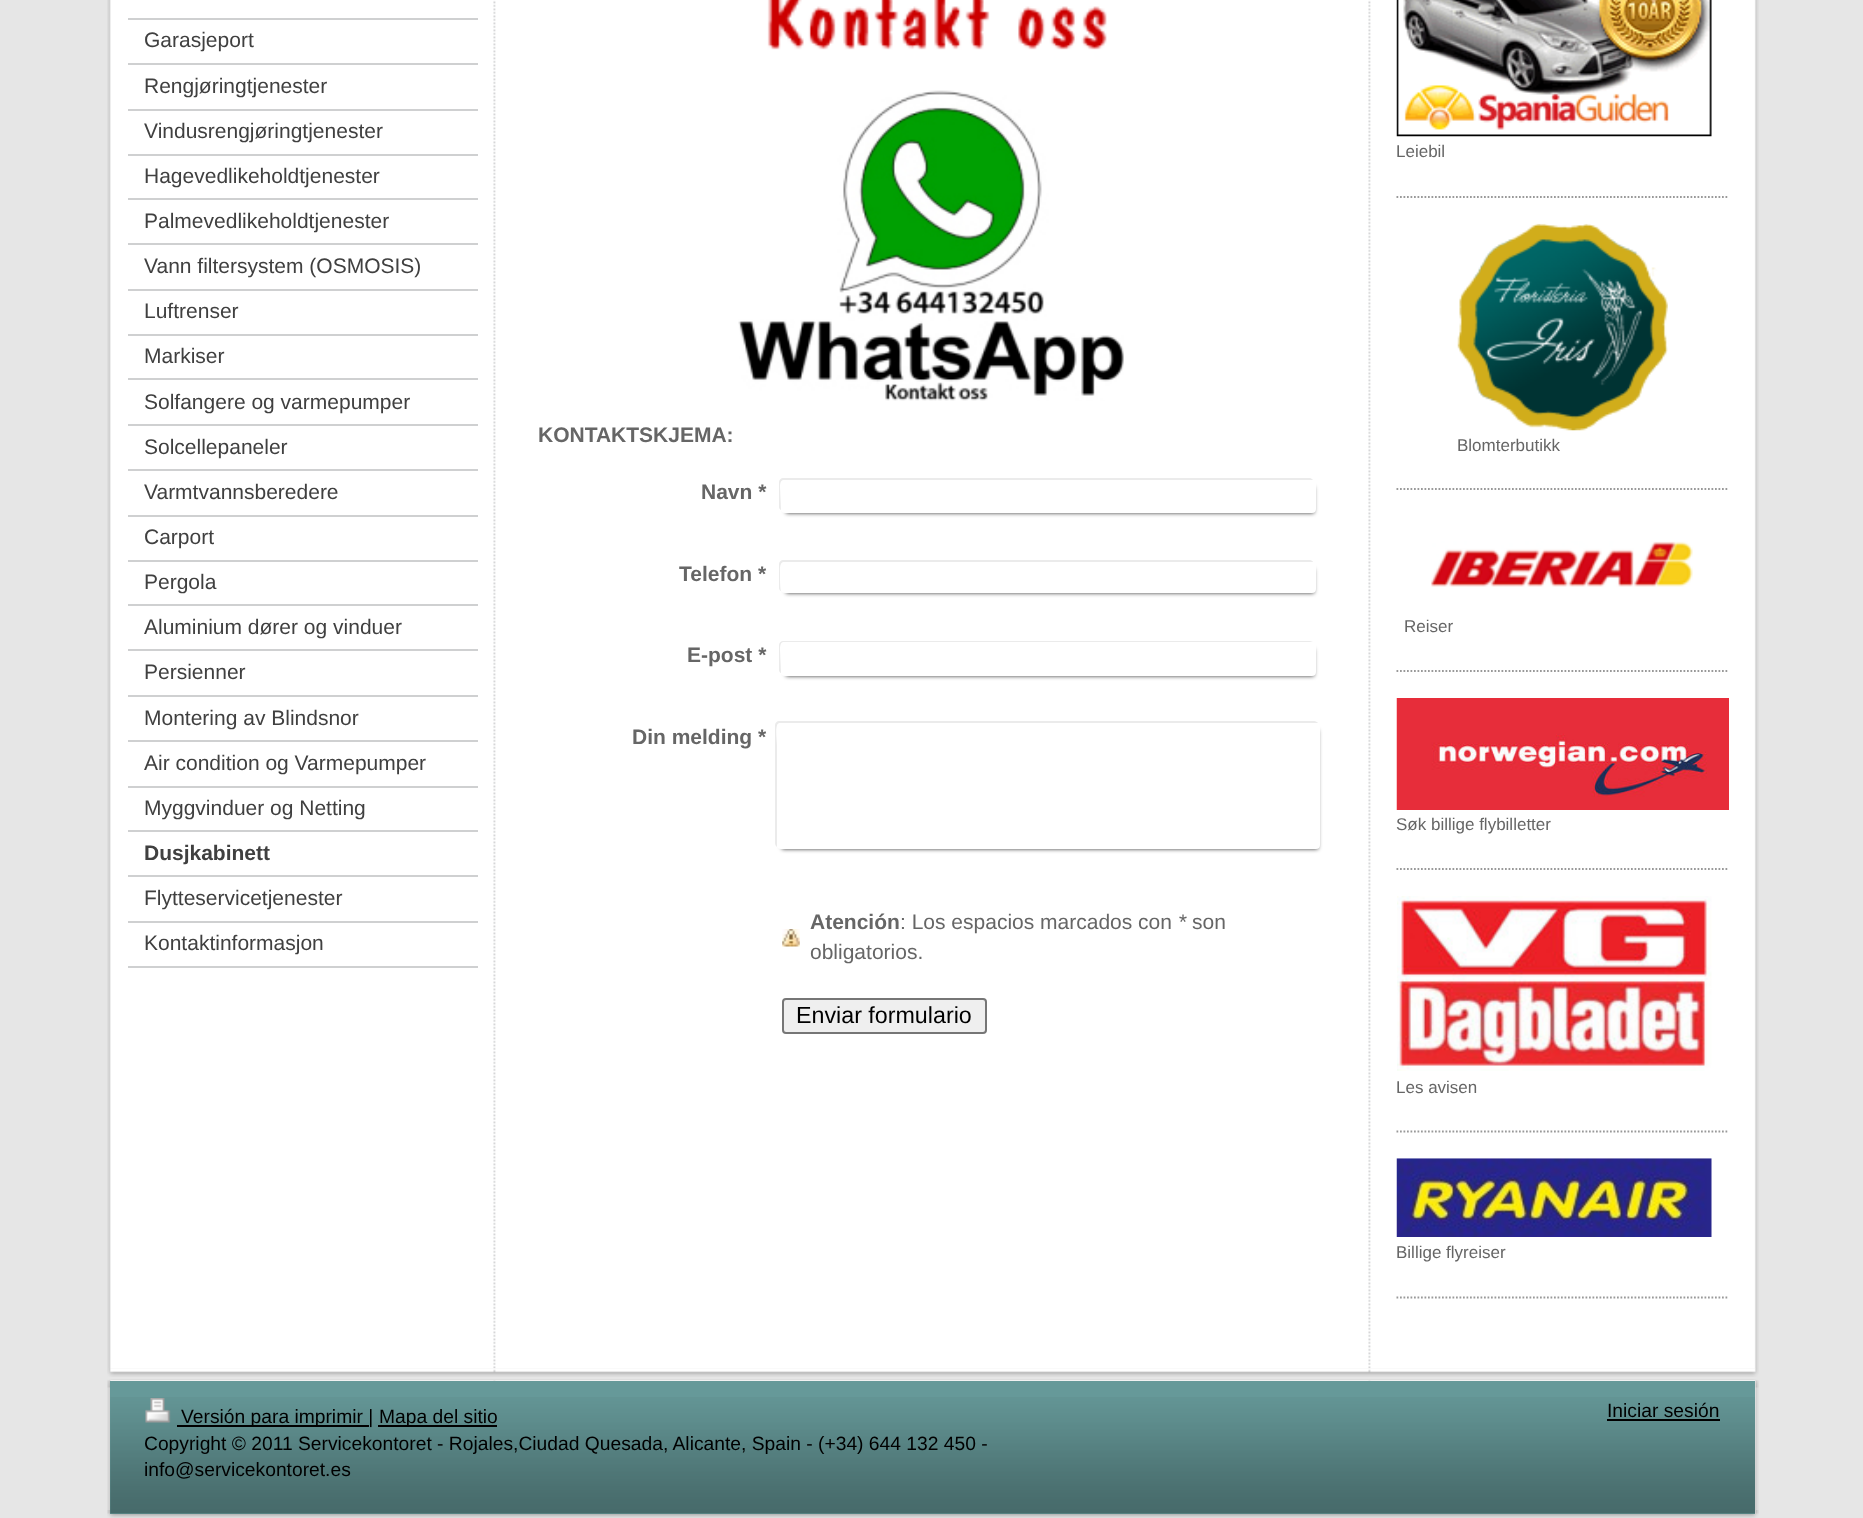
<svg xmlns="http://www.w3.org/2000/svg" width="1863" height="1518">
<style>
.a{font:21px Liberation Sans;fill:#404040}
.b{font:bold 21px Liberation Sans;fill:#404040}
.c{font:bold 21px Liberation Sans;fill:#666}
.d{font:21px Liberation Sans;fill:#666}
.e{font:italic 21px Liberation Sans;fill:#666}
.f{font:23.25px Liberation Sans;fill:#000}
.g{font:17px Liberation Sans;fill:#666}
.h{font:19.25px Liberation Sans;fill:#000}
</style>
<rect width="100%" height="100%" fill="#e6e6e6"/>
<image href="1.png" x="107" y="1368" width="1652" height="9"/>
<image href="2.png" x="107" y="0" width="1652" height="1369"/>
<path fill="#cfd0d1" d="M128 18h350v2H128z"/>
<path fill="#cfd0d1" d="M128 63h350v2H128z"/>
<path fill="#cfd0d1" d="M128 109h350v2H128z"/>
<path fill="#cfd0d1" d="M128 154h350v2H128z"/>
<path fill="#cfd0d1" d="M128 198h350v2H128z"/>
<path fill="#cfd0d1" d="M128 243h350v2H128z"/>
<path fill="#cfd0d1" d="M128 289h350v2H128z"/>
<path fill="#cfd0d1" d="M128 334h350v2H128z"/>
<path fill="#cfd0d1" d="M128 378h350v2H128z"/>
<path fill="#cfd0d1" d="M128 424h350v2H128z"/>
<path fill="#cfd0d1" d="M128 469h350v2H128z"/>
<path fill="#cfd0d1" d="M128 515h350v2H128z"/>
<path fill="#cfd0d1" d="M128 560h350v2H128z"/>
<path fill="#cfd0d1" d="M128 604h350v2H128z"/>
<path fill="#cfd0d1" d="M128 649h350v2H128z"/>
<path fill="#cfd0d1" d="M128 695h350v2H128z"/>
<path fill="#cfd0d1" d="M128 740h350v2H128z"/>
<path fill="#cfd0d1" d="M128 786h350v2H128z"/>
<path fill="#cfd0d1" d="M128 830h350v2H128z"/>
<path fill="#cfd0d1" d="M128 875h350v2H128z"/>
<path fill="#cfd0d1" d="M128 921h350v2H128z"/>
<path fill="#cfd0d1" d="M128 966h350v2H128z"/>
<image href="3.png" x="767" y="0" width="340" height="50"/>
<image href="4.png" x="738" y="90" width="386" height="311"/>
<path fill="#ebebeb" d="M783 478c-2 0-4 2-4 4v25c0 1 1 3 2 3l-1-23c0-2 0-7 4-7h529c-1-1-2-2-3-2z"/>
<path fill="#000000cc" filter="blur(2px)" d="M786 487h528v26H786z"/>
<rect fill="#fff" x="781" y="480" width="535" height="33" rx="4"/>
<path fill="#ebebeb" d="M783 560c-2 0-4 2-4 4v24c0 1 1 3 2 3c-1-2-1-14-1-18c0-2-1-11 4-11h529c0-1-2-2-3-2z"/>
<path fill="#000000cc" filter="blur(2px)" d="M786 569h528v24H786z"/>
<rect fill="#fff" x="781" y="562" width="535" height="31" rx="4"/>
<path fill="#ebebeb" d="M783 641c-2 0-4 2-4 4v25c0 1 1 3 2 3l-1-23c0-3 0-8 4-8h529l-3-1z"/>
<path fill="#000000cc" filter="blur(2px)" d="M786 649h528v27H786z"/>
<rect fill="#fff" x="781" y="642" width="535" height="34" rx="4"/>
<path fill="#ebebeb" d="M779 721c-2 0-4 2-4 4v118c0 2 1 3 2 4v-101c0-7-3-23 3-23h538c-1-1-2-2-4-2z"/>
<path fill="#000000cc" filter="blur(2px)" d="M782 730h536v119H782z"/>
<rect fill="#fff" x="777" y="723" width="543" height="126" rx="4"/>
<image href="5.png" x="782" y="929" width="18" height="18"/>
<rect fill="#efefef" stroke="#767676" stroke-width="2" x="783" y="999" width="203" height="34" rx="3"/>
<image href="6.png" x="1396" y="0" width="316" height="137"/>
<path fill="none" stroke="#999" stroke-width="1.8" stroke-dasharray="1.75 1.75" d="M1396.5 197h332.5"/>
<image href="7.png" x="1457" y="223" width="211" height="208"/>
<path fill="none" stroke="#999" stroke-width="1.8" stroke-dasharray="1.75 1.75" d="M1396.5 489h332.5"/>
<image href="8.png" x="1431" y="541" width="262" height="46"/>
<path fill="none" stroke="#999" stroke-width="1.8" stroke-dasharray="1.75 1.75" d="M1396.5 671h332.5"/>
<image href="9.png" x="1396" y="698" width="333" height="112"/>
<path fill="none" stroke="#999" stroke-width="1.8" stroke-dasharray="1.75 1.75" d="M1396.5 869h332.5"/>
<image href="10.png" x="1397" y="896" width="315" height="175"/>
<path fill="none" stroke="#999" stroke-width="1.8" stroke-dasharray="1.75 1.75" d="M1396.5 1131.5h332.5"/>
<image href="11.png" x="1396" y="1158" width="316" height="79"/>
<path fill="none" stroke="#999" stroke-width="1.8" stroke-dasharray="1.75 1.75" d="M1396.5 1297.5h332.5"/>
<image href="12.png" x="107" y="1379" width="1652" height="9"/>
<image href="13.png" x="107" y="1510" width="1652" height="8"/>
<image href="14.png" x="107" y="1380" width="1652" height="134"/>
<path fill="#699" d="M110 1381h1645v133H110z"/>
<image href="15.png" x="110" y="1397" width="1646" height="117"/>
<image href="16.png" x="145" y="1398" width="26" height="25"/>
<path fill="#000" d="M177 1425h192v2H177z"/>
<path fill="#000" d="M378 1425h119v2H378z"/>
<path fill="#000" d="M1607 1419h113v2H1607z"/>
<text class="a" x="144" y="47">Garasjeport</text>
<text class="a" x="144" y="93">Rengjøringtjenester</text>
<text class="a" x="144" y="138">Vindusrengjøringtjenester</text>
<text class="a" x="144" y="183">Hagevedlikeholdtjenester</text>
<text class="a" x="144" y="228">Palmevedlikeholdtjenester</text>
<text class="a" x="144" y="273">Vann filtersystem (OSMOSIS)</text>
<text class="a" x="144" y="318">Luftrenser</text>
<text class="a" x="144" y="363">Markiser</text>
<text class="a" x="144" y="409">Solfangere og varmepumper</text>
<text class="a" x="144" y="454">Solcellepaneler</text>
<text class="a" x="144" y="499">Varmtvannsberedere</text>
<text class="a" x="144" y="544">Carport</text>
<text class="a" x="144" y="589">Pergola</text>
<text class="a" x="144" y="634">Aluminium dører og vinduer</text>
<text class="a" x="144" y="679">Persienner</text>
<text class="a" x="144" y="725">Montering av Blindsnor</text>
<text class="a" x="144" y="770">Air condition og Varmepumper</text>
<text class="a" x="144" y="815">Myggvinduer og Netting</text>
<text class="b" x="144" y="860">Dusjkabinett</text>
<text class="a" x="144" y="905">Flytteservicetjenester</text>
<text class="a" x="144" y="950">Kontaktinformasjon</text>
<text class="c" x="538" y="442">KONTAKTSKJEMA:</text>
<text class="c" x="701" y="499">Navn *</text>
<text class="c" x="679" y="581">Telefon *</text>
<text class="c" x="687" y="662">E-post *</text>
<text class="c" x="632" y="744">Din melding *</text>
<text class="c" x="810" y="929">Atención</text>
<text class="d" x="900" y="929">: Los espacios marcados con</text>
<text class="e" x="1178" y="929">*</text>
<text class="d" x="1192" y="929">son</text>
<text class="d" x="810" y="959">obligatorios.</text>
<text class="f" x="796" y="1023">Enviar formulario</text>
<text class="g" x="1396" y="157">Leiebil</text>
<text class="g" x="1457" y="451">Blomterbutikk</text>
<text class="g" x="1404" y="632">Reiser</text>
<text class="g" x="1396" y="830">Søk billige flybilletter</text>
<text class="g" x="1396" y="1093">Les avisen</text>
<text class="g" x="1396" y="1258">Billige flyreiser</text>
<text class="h" x="181" y="1423">Versión para imprimir |</text>
<text class="h" x="379" y="1423">Mapa del sitio</text>
<text class="h" x="144" y="1450">Copyright © 2011 Servicekontoret - Rojales,Ciudad Quesada, Alicante, Spain - (+34) 644 132 450 -</text>
<text class="h" x="144" y="1476">info@servicekontoret.es</text>
<text class="h" x="1607" y="1417">Iniciar sesión</text>
</svg>
